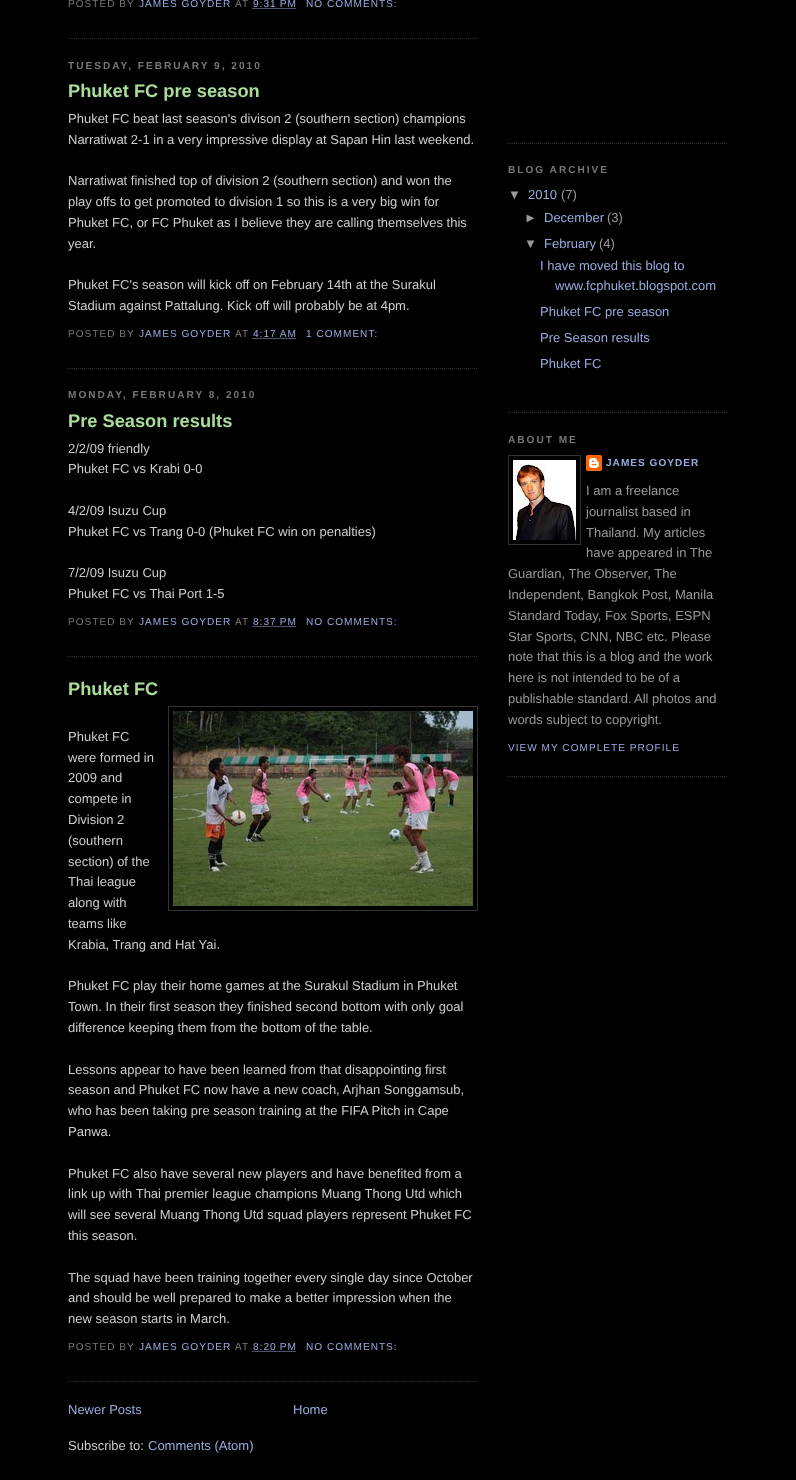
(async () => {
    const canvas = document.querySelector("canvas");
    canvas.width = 796;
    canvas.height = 1480;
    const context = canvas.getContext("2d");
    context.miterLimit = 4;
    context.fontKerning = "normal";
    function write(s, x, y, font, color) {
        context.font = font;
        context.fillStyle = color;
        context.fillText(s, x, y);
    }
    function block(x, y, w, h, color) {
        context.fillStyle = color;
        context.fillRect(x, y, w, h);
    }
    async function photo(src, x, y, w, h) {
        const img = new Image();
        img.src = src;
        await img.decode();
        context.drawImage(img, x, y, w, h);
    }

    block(0, 0, 796, 1480, "rgb(0, 0, 0)");
    context.beginPath();
    context.moveTo(68, 38.5);
    context.lineTo(478, 38.5);
    context.strokeStyle = "rgb(51, 51, 51)";
    context.setLineDash([1, 1]);
    context.stroke();
    context.letterSpacing = "1px";
    write("POSTED BY", 68, 7, "10.1px Liberation Sans", "rgb(119, 119, 119)");
    write("JAMES GOYDER", 139, 7, "10.1px Liberation Sans", "rgb(153, 170, 221)");
    write("AT", 235, 7, "10.1px Liberation Sans", "rgb(119, 119, 119)");
    write("9:31 PM", 253, 7, "10.1px Liberation Sans", "rgb(153, 170, 221)");
    context.beginPath();
    context.moveTo(252.5, 8.5);
    context.lineTo(296.5, 8.5);
    context.strokeStyle = "rgb(153, 170, 221)";
    context.stroke();
    write("NO COMMENTS:", 306, 7, "10.1px Liberation Sans", "rgb(153, 170, 221)");
    context.letterSpacing = "2px";
    write("TUESDAY, FEBRUARY 9, 2010", 68, 69, "bold 10.1px Liberation Sans", "rgb(119, 119, 119)");
    context.beginPath();
    context.moveTo(68, 368.5);
    context.lineTo(478, 368.5);
    context.strokeStyle = "rgb(51, 51, 51)";
    context.stroke();
    context.letterSpacing = "0px";
    write("Phuket FC pre season", 68, 97, "bold 18.25px Liberation Sans", "rgb(170, 221, 153)");
    write("Phuket FC beat last season's divison 2 (southern section) champions", 68, 123, "13px Liberation Sans", "rgb(204, 204, 204)");
    write("Narratiwat 2-1 in a very impressive display at Sapan Hin last weekend.", 68, 144, "13px Liberation Sans", "rgb(204, 204, 204)");
    write("Narratiwat finished top of division 2 (southern section) and won the", 68, 185, "13px Liberation Sans", "rgb(204, 204, 204)");
    write("play offs to get promoted to division 1 so this is a very big win for", 68, 206, "13px Liberation Sans", "rgb(204, 204, 204)");
    write("Phuket FC, or FC Phuket as I believe they are calling themselves this", 68, 227, "13px Liberation Sans", "rgb(204, 204, 204)");
    write("year.", 68, 248, "13px Liberation Sans", "rgb(204, 204, 204)");
    write("Phuket FC's season will kick off on February 14th at the Surakul", 68, 289, "13px Liberation Sans", "rgb(204, 204, 204)");
    write("Stadium against Pattalung. Kick off will probably be at 4pm.", 68, 310, "13px Liberation Sans", "rgb(204, 204, 204)");
    context.letterSpacing = "1px";
    write("POSTED BY", 68, 337, "10.1px Liberation Sans", "rgb(119, 119, 119)");
    write("JAMES GOYDER", 139, 337, "10.1px Liberation Sans", "rgb(153, 170, 221)");
    write("AT", 235, 337, "10.1px Liberation Sans", "rgb(119, 119, 119)");
    write("4:17 AM", 253, 337, "10.1px Liberation Sans", "rgb(153, 170, 221)");
    context.beginPath();
    context.moveTo(252.5, 338.5);
    context.lineTo(296.5, 338.5);
    context.strokeStyle = "rgb(153, 170, 221)";
    context.stroke();
    write("1 COMMENT:", 306, 337, "10.1px Liberation Sans", "rgb(153, 170, 221)");
    context.letterSpacing = "2px";
    write("MONDAY, FEBRUARY 8, 2010", 68, 398, "bold 10.1px Liberation Sans", "rgb(119, 119, 119)");
    context.beginPath();
    context.moveTo(68, 656.5);
    context.lineTo(478, 656.5);
    context.strokeStyle = "rgb(51, 51, 51)";
    context.stroke();
    context.letterSpacing = "0px";
    write("Pre Season results", 68, 427, "bold 18.25px Liberation Sans", "rgb(170, 221, 153)");
    write("2/2/09 friendly", 68, 453, "13px Liberation Sans", "rgb(204, 204, 204)");
    write("Phuket FC vs Krabi 0-0", 68, 473, "13px Liberation Sans", "rgb(204, 204, 204)");
    write("4/2/09 Isuzu Cup", 68, 515, "13px Liberation Sans", "rgb(204, 204, 204)");
    write("Phuket FC vs Trang 0-0 (Phuket FC win on penalties)", 68, 536, "13px Liberation Sans", "rgb(204, 204, 204)");
    write("7/2/09 Isuzu Cup", 68, 577, "13px Liberation Sans", "rgb(204, 204, 204)");
    write("Phuket FC vs Thai Port 1-5", 68, 598, "13px Liberation Sans", "rgb(204, 204, 204)");
    context.letterSpacing = "1px";
    write("POSTED BY", 68, 625, "10.1px Liberation Sans", "rgb(119, 119, 119)");
    write("JAMES GOYDER", 139, 625, "10.1px Liberation Sans", "rgb(153, 170, 221)");
    write("AT", 235, 625, "10.1px Liberation Sans", "rgb(119, 119, 119)");
    write("8:37 PM", 253, 625, "10.1px Liberation Sans", "rgb(153, 170, 221)");
    context.beginPath();
    context.moveTo(252.5, 626.5);
    context.lineTo(296.5, 626.5);
    context.strokeStyle = "rgb(153, 170, 221)";
    context.stroke();
    write("NO COMMENTS:", 306, 625, "10.1px Liberation Sans", "rgb(153, 170, 221)");
    context.beginPath();
    context.moveTo(68, 1381.5);
    context.lineTo(478, 1381.5);
    context.strokeStyle = "rgb(51, 51, 51)";
    context.stroke();
    context.letterSpacing = "0px";
    write("Phuket FC", 68, 695, "bold 18.25px Liberation Sans", "rgb(170, 221, 153)");
    write("Phuket FC", 68, 741, "13px Liberation Sans", "rgb(204, 204, 204)");
    context.setLineDash([]);
    context.strokeRect(168.5, 706.5, 309, 204);
    await photo("media/1.png", 173, 711, 300, 195);
    write("were formed in", 68, 762, "13px Liberation Sans", "rgb(204, 204, 204)");
    write("2009 and", 68, 782, "13px Liberation Sans", "rgb(204, 204, 204)");
    write("compete in", 68, 803, "13px Liberation Sans", "rgb(204, 204, 204)");
    write("Division 2", 68, 824, "13px Liberation Sans", "rgb(204, 204, 204)");
    write("(southern", 68, 845, "13px Liberation Sans", "rgb(204, 204, 204)");
    write("section) of the", 68, 866, "13px Liberation Sans", "rgb(204, 204, 204)");
    write("Thai league", 68, 886, "13px Liberation Sans", "rgb(204, 204, 204)");
    write("along with", 68, 907, "13px Liberation Sans", "rgb(204, 204, 204)");
    write("teams like", 68, 928, "13px Liberation Sans", "rgb(204, 204, 204)");
    write("Krabia, Trang and Hat Yai.", 68, 949, "13px Liberation Sans", "rgb(204, 204, 204)");
    write("Phuket FC play their home games at the Surakul Stadium in Phuket", 68, 990, "13px Liberation Sans", "rgb(204, 204, 204)");
    write("Town. In their first season they finished second bottom with only goal", 68, 1011, "13px Liberation Sans", "rgb(204, 204, 204)");
    write("difference keeping them from the bottom of the table.", 68, 1032, "13px Liberation Sans", "rgb(204, 204, 204)");
    write("Lessons appear to have been learned from that disappointing first", 68, 1074, "13px Liberation Sans", "rgb(204, 204, 204)");
    write("season and Phuket FC now have a new coach, Arjhan Songgamsub,", 68, 1094, "13px Liberation Sans", "rgb(204, 204, 204)");
    write("who has been taking pre season training at the FIFA Pitch in Cape", 68, 1115, "13px Liberation Sans", "rgb(204, 204, 204)");
    write("Panwa.", 68, 1136, "13px Liberation Sans", "rgb(204, 204, 204)");
    write("Phuket FC also have several new players and have benefited from a", 68, 1178, "13px Liberation Sans", "rgb(204, 204, 204)");
    write("link up with Thai premier league champions Muang Thong Utd which", 68, 1198, "13px Liberation Sans", "rgb(204, 204, 204)");
    write("will see several Muang Thong Utd squad players represent Phuket FC", 68, 1219, "13px Liberation Sans", "rgb(204, 204, 204)");
    write("this season.", 68, 1240, "13px Liberation Sans", "rgb(204, 204, 204)");
    write("The squad have been training together every single day since October", 68, 1282, "13px Liberation Sans", "rgb(204, 204, 204)");
    write("and should be well prepared to make a better impression when the", 68, 1302, "13px Liberation Sans", "rgb(204, 204, 204)");
    write("new season starts in March.", 68, 1323, "13px Liberation Sans", "rgb(204, 204, 204)");
    context.letterSpacing = "1px";
    write("POSTED BY", 68, 1350, "10.1px Liberation Sans", "rgb(119, 119, 119)");
    write("JAMES GOYDER", 139, 1350, "10.1px Liberation Sans", "rgb(153, 170, 221)");
    write("AT", 235, 1350, "10.1px Liberation Sans", "rgb(119, 119, 119)");
    write("8:20 PM", 253, 1350, "10.1px Liberation Sans", "rgb(153, 170, 221)");
    context.beginPath();
    context.moveTo(252.5, 1351.5);
    context.lineTo(296.5, 1351.5);
    context.strokeStyle = "rgb(153, 170, 221)";
    context.setLineDash([1, 1]);
    context.stroke();
    write("NO COMMENTS:", 306, 1350, "10.1px Liberation Sans", "rgb(153, 170, 221)");
    context.letterSpacing = "0px";
    write("Newer Posts", 68, 1414, "13px Liberation Sans", "rgb(153, 170, 221)");
    write("Home", 293, 1414, "13px Liberation Sans", "rgb(153, 170, 221)");
    write("Subscribe to:", 68, 1450, "13px Liberation Sans", "rgb(204, 204, 204)");
    write("Comments (Atom)", 148, 1450, "13px Liberation Sans", "rgb(153, 170, 221)");
    context.beginPath();
    context.moveTo(508, 143.5);
    context.lineTo(728, 143.5);
    context.strokeStyle = "rgb(51, 51, 51)";
    context.stroke();
    context.beginPath();
    context.moveTo(508, 412.5);
    context.lineTo(728, 412.5);
    context.stroke();
    context.letterSpacing = "2px";
    write("BLOG ARCHIVE", 508, 173, "bold 10.1px Liberation Sans", "rgb(119, 119, 119)");
    context.letterSpacing = "0px";
    write("▼", 508, 199, "13px Liberation Sans", "rgb(153, 153, 153)");
    write("2010", 528, 199, "13px Liberation Sans", "rgb(153, 170, 221)");
    write("(7)", 561, 199, "13px Liberation Sans", "rgb(153, 153, 153)");
    write("►", 524, 222, "13px Liberation Sans", "rgb(153, 153, 153)");
    write("December", 544, 222, "13px Liberation Sans", "rgb(153, 170, 221)");
    write("(3)", 607, 222, "13px Liberation Sans", "rgb(153, 153, 153)");
    write("▼", 524, 248, "13px Liberation Sans", "rgb(153, 153, 153)");
    write("February", 544, 248, "13px Liberation Sans", "rgb(153, 170, 221)");
    write("(4)", 599, 248, "13px Liberation Sans", "rgb(153, 153, 153)");
    write("I have moved this blog to", 540, 270, "13px Liberation Sans", "rgb(153, 170, 221)");
    write("www.fcphuket.blogspot.com", 555, 290, "13px Liberation Sans", "rgb(153, 170, 221)");
    write("Phuket FC pre season", 540, 316, "13px Liberation Sans", "rgb(153, 170, 221)");
    write("Pre Season results", 540, 342, "13px Liberation Sans", "rgb(153, 170, 221)");
    write("Phuket FC", 540, 368, "13px Liberation Sans", "rgb(153, 170, 221)");
    context.beginPath();
    context.moveTo(508, 776.5);
    context.lineTo(728, 776.5);
    context.stroke();
    context.letterSpacing = "2px";
    write("ABOUT ME", 508, 443, "bold 10.1px Liberation Sans", "rgb(119, 119, 119)");
    context.setLineDash([]);
    context.strokeRect(508.5, 455.5, 72, 89);
    await photo("media/2.png", 513, 460, 63, 80);
    await photo("media/3.png", 586, 455, 16, 16);
    context.letterSpacing = "1px";
    write("JAMES GOYDER", 606, 466, "bold 10.1px Liberation Sans", "rgb(153, 170, 221)");
    context.letterSpacing = "0px";
    write("I am a freelance", 586, 495, "13px Liberation Sans", "rgb(153, 153, 153)");
    write("journalist based in", 586, 516, "13px Liberation Sans", "rgb(153, 153, 153)");
    write("Thailand. My articles", 586, 537, "13px Liberation Sans", "rgb(153, 153, 153)");
    write("have appeared in The", 586, 557, "13px Liberation Sans", "rgb(153, 153, 153)");
    write("Guardian, The Observer, The", 508, 578, "13px Liberation Sans", "rgb(153, 153, 153)");
    write("Independent, Bangkok Post, Manila", 508, 599, "13px Liberation Sans", "rgb(153, 153, 153)");
    write("Standard Today, Fox Sports, ESPN", 508, 620, "13px Liberation Sans", "rgb(153, 153, 153)");
    write("Star Sports, CNN, NBC etc. Please", 508, 641, "13px Liberation Sans", "rgb(153, 153, 153)");
    write("note that this is a blog and the work", 508, 661, "13px Liberation Sans", "rgb(153, 153, 153)");
    write("here is not intended to be of a", 508, 682, "13px Liberation Sans", "rgb(153, 153, 153)");
    write("publishable standard.", 508, 703, "13px Liberation Sans", "rgb(153, 153, 153)");
    write("All photos and", 634, 703, "13px Liberation Sans", "rgb(153, 153, 153)");
    write("words subject to copyright.", 508, 724, "13px Liberation Sans", "rgb(153, 153, 153)");
    context.letterSpacing = "1px";
    write("VIEW MY COMPLETE PROFILE", 508, 751, "10.1px Liberation Sans", "rgb(153, 170, 221)");
})();
